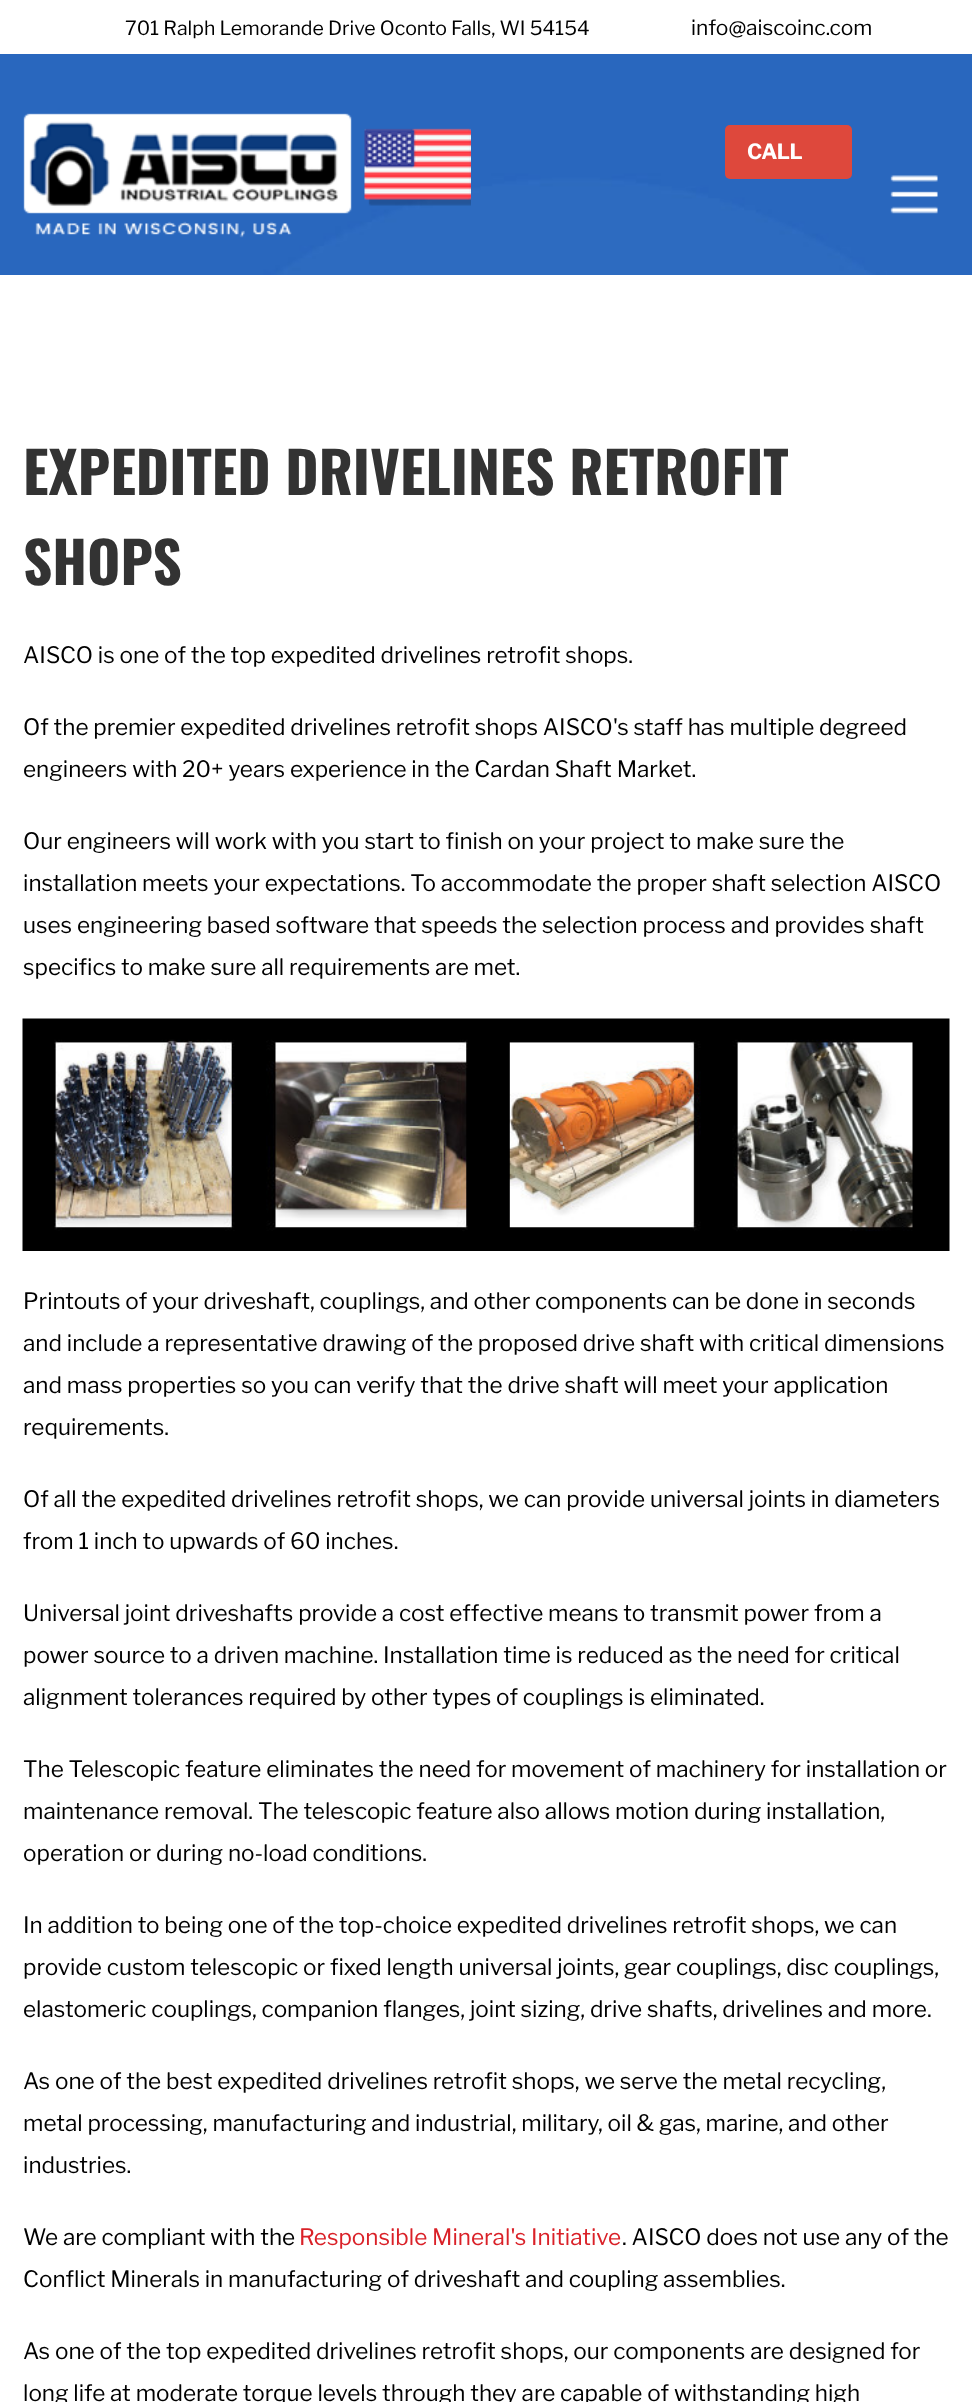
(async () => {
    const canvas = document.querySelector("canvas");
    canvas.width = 972;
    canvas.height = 2402;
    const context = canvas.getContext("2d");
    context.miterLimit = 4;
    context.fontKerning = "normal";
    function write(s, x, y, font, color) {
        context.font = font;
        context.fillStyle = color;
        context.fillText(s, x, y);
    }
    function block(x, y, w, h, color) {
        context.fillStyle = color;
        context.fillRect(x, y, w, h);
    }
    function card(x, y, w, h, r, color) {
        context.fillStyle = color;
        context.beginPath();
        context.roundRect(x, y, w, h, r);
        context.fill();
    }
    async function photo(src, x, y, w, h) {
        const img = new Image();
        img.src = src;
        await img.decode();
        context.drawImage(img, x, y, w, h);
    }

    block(0, 0, 972, 2402, "rgb(255, 255, 255)");
    write("701 Ralph Lemorande Drive Oconto Falls, WI 54154", 125, 35, "19.5px Libre Franklin", "rgb(0, 0, 0)");
    write("info@aiscoinc.com", 691, 35, "21px Libre Franklin", "rgb(0, 0, 0)");
    await photo("media/1.png", 0, 54, 972, 221);
    await photo("media/2.png", 23, 113, 448, 125);
    card(725, 125, 127, 54, 5, "rgb(222, 72, 60)");
    context.letterSpacing = "-0.5px";
    write("CALL", 747, 159, "bold 21px Libre Franklin", "rgb(255, 255, 255)");
    await photo("media/3.png", 890, 175, 48, 39);
    context.letterSpacing = "0px";
    write("EXPEDITED DRIVELINES RETROFIT", 23, 495, "bold 57px Oswald", "rgb(51, 51, 51)");
    write("SHOPS", 23, 585, "bold 57px Oswald", "rgb(51, 51, 51)");
    write("AISCO is one of the top expedited drivelines retrofit shops.", 23, 663, "22.5px Libre Franklin", "rgb(0, 0, 0)");
    write("Of the premier expedited drivelines retrofit shops AISCO's staff has multiple degreed", 23, 735, "22.5px Libre Franklin", "rgb(0, 0, 0)");
    write("engineers with 20+ years experience in the Cardan Shaft Market.", 23, 777, "22.5px Libre Franklin", "rgb(0, 0, 0)");
    write("Our engineers will work with you start to finish on your project to make sure the", 23, 849, "22.5px Libre Franklin", "rgb(0, 0, 0)");
    write("installation meets your expectations. To accommodate the proper shaft selection AISCO", 23, 891, "22.5px Libre Franklin", "rgb(0, 0, 0)");
    write("uses engineering based software that speeds the selection process and provides shaft", 23, 933, "22.5px Libre Franklin", "rgb(0, 0, 0)");
    write("specifics to make sure all requirements are met.", 23, 975, "22.5px Libre Franklin", "rgb(0, 0, 0)");
    await photo("media/4.png", 22, 1018, 928, 233);
    write("Printouts of your driveshaft, couplings, and other components can be done in seconds", 23, 1309, "22.5px Libre Franklin", "rgb(0, 0, 0)");
    write("and include a representative drawing of the proposed drive shaft with critical dimensions", 23, 1351, "22.5px Libre Franklin", "rgb(0, 0, 0)");
    write("and mass properties so you can verify that the drive shaft will meet your application", 23, 1393, "22.5px Libre Franklin", "rgb(0, 0, 0)");
    write("requirements.", 23, 1435, "22.5px Libre Franklin", "rgb(0, 0, 0)");
    write("Of all the expedited drivelines retrofit shops, we can provide universal joints in diameters", 23, 1507, "22.5px Libre Franklin", "rgb(0, 0, 0)");
    write("from 1 inch to upwards of 60 inches.", 23, 1549, "22.5px Libre Franklin", "rgb(0, 0, 0)");
    write("Universal joint driveshafts provide a cost effective means to transmit power from a", 23, 1621, "22.5px Libre Franklin", "rgb(0, 0, 0)");
    write("power source to a driven machine. Installation time is reduced as the need for critical", 23, 1663, "22.5px Libre Franklin", "rgb(0, 0, 0)");
    write("alignment tolerances required by other types of couplings is eliminated.", 23, 1705, "22.5px Libre Franklin", "rgb(0, 0, 0)");
    write("The Telescopic feature eliminates the need for movement of machinery for installation or", 23, 1777, "22.5px Libre Franklin", "rgb(0, 0, 0)");
    write("maintenance removal. The telescopic feature also allows motion during installation,", 23, 1819, "22.5px Libre Franklin", "rgb(0, 0, 0)");
    write("operation or during no-load conditions.", 23, 1861, "22.5px Libre Franklin", "rgb(0, 0, 0)");
    write("In addition to being one of the top-choice expedited drivelines retrofit shops, we can", 23, 1933, "22.5px Libre Franklin", "rgb(0, 0, 0)");
    write("provide custom telescopic or fixed length universal joints, gear couplings, disc couplings,", 23, 1975, "22.5px Libre Franklin", "rgb(0, 0, 0)");
    write("elastomeric couplings, companion flanges, joint sizing, drive shafts, drivelines and more.", 23, 2017, "22.5px Libre Franklin", "rgb(0, 0, 0)");
    write("As one of the best expedited drivelines retrofit shops, we serve the metal recycling,", 23, 2089, "22.5px Libre Franklin", "rgb(0, 0, 0)");
    write("metal processing, manufacturing and industrial, military, oil & gas, marine, and other", 23, 2131, "22.5px Libre Franklin", "rgb(0, 0, 0)");
    write("industries.", 23, 2173, "22.5px Libre Franklin", "rgb(0, 0, 0)");
    write("We are compliant with the", 23, 2245, "22.5px Libre Franklin", "rgb(0, 0, 0)");
    write("Responsible Mineral's Initiative", 299, 2245, "22.5px Libre Franklin", "rgb(218, 33, 40)");
    write(". AISCO does not use any of the", 622, 2245, "22.5px Libre Franklin", "rgb(0, 0, 0)");
    write("Conflict Minerals in manufacturing of driveshaft and coupling assemblies.", 23, 2287, "22.5px Libre Franklin", "rgb(0, 0, 0)");
    write("As one of the top expedited drivelines retrofit shops, our components are designed for", 23, 2359, "22.5px Libre Franklin", "rgb(0, 0, 0)");
    write("long life at moderate torque levels through they are capable of withstanding high", 23, 2401, "22.5px Libre Franklin", "rgb(0, 0, 0)");
})();
